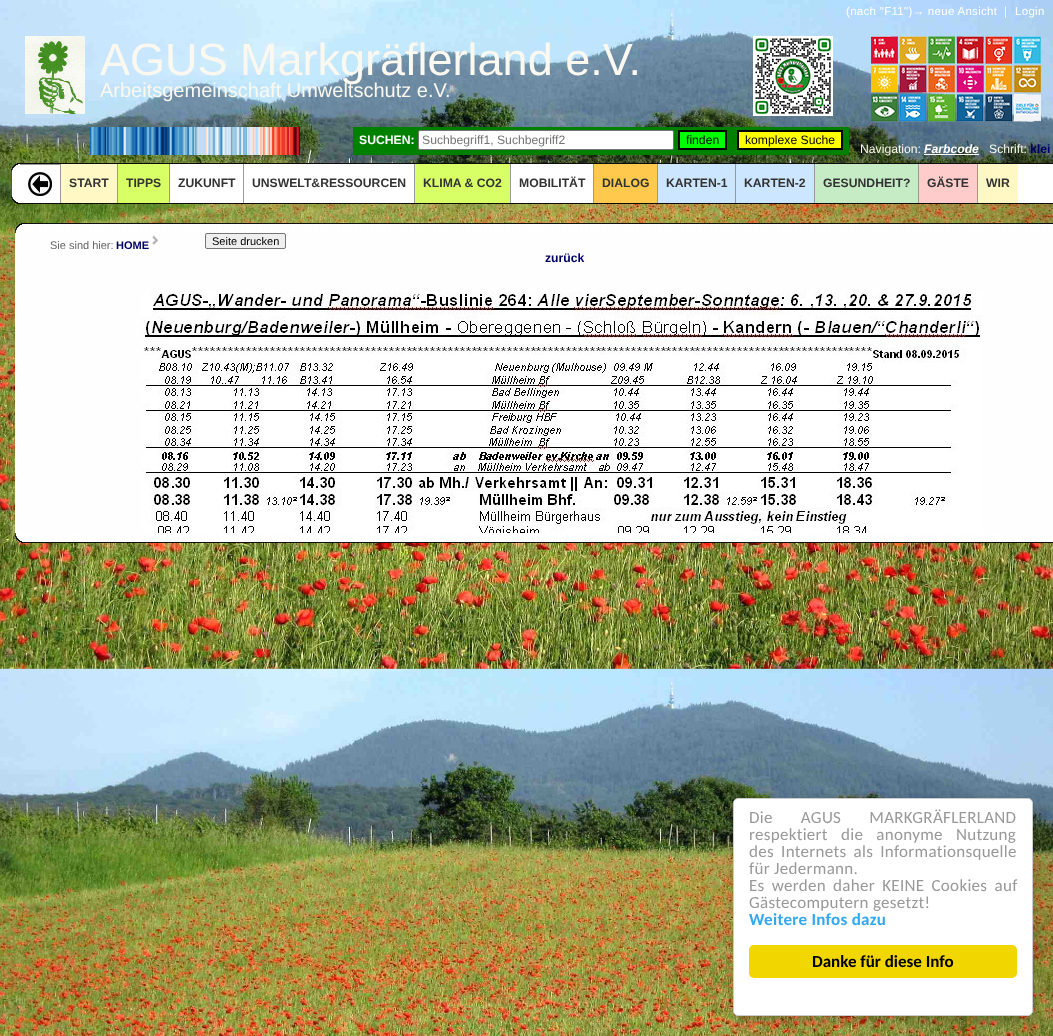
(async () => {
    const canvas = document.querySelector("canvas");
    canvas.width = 1053;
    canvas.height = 1036;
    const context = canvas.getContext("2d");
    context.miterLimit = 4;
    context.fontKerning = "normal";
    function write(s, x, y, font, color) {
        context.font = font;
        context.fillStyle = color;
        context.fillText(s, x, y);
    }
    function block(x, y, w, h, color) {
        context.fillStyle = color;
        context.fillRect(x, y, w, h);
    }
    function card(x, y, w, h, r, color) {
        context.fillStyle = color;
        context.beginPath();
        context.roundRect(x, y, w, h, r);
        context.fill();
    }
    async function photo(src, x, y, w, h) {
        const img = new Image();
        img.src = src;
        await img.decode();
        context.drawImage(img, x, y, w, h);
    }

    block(0, 0, 1053, 1036, "rgb(255, 255, 255)");
    await photo("media/1.png", 0, 0, 1053, 1036);
    context.letterSpacing = "0.3px";
    write("(nach \"F11\")→ neue Ansicht", 846, 15, "11.5px Liberation Sans", "rgb(255, 255, 255)");
    write("|", 1004, 15, "11.5px Liberation Sans", "rgb(255, 255, 255)");
    write("Login", 1015, 15, "11.5px Liberation Sans", "rgb(255, 255, 255)");
    await photo("media/2.png", 25, 36, 60, 78);
    context.letterSpacing = "0px";
    write("AGUS Markgräflerland e.V.", 100, 75, "45px Liberation Sans", "rgb(251, 248, 239)");
    write("Arbeitsgemeinschaft Umweltschutz e.V.", 100, 97, "20px Liberation Sans", "rgb(251, 248, 239)");
    await photo("media/3.png", 753, 36, 80, 80);
    await photo("media/4.png", 871, 36, 170, 86);
    await photo("media/5.png", 90, 127, 210, 28);
    block(353, 127, 496, 28, "rgb(0, 128, 0)");
    write("SUCHEN:", 359, 144, "bold 12.2px Liberation Sans", "rgb(255, 255, 255)");
    context.beginPath();
    context.roundRect(418.5, 130.5, 255, 19, 1.5);
    context.fill();
    context.strokeStyle = "rgb(118, 118, 118)";
    context.stroke();
    write("Suchbegriff1, Suchbegriff2", 422, 144, "12.2px Liberation Sans", "rgb(117, 117, 117)");
    context.fillStyle = "rgb(0, 255, 0)";
    context.beginPath();
    context.rect(679, 131, 47, 18);
    context.fill();
    context.strokeStyle = "rgb(0, 0, 0)";
    context.lineWidth = 2;
    context.stroke();
    write("finden", 686, 144, "12.2px Liberation Sans", "rgb(0, 0, 0)");
    context.fillStyle = "rgb(255, 255, 0)";
    context.beginPath();
    context.rect(738, 131, 104, 18);
    context.fill();
    context.stroke();
    write("komplexe Suche", 745, 144, "12.2px Liberation Sans", "rgb(0, 0, 0)");
    write("Navigation:", 860, 153, "12.2px Liberation Sans", "rgb(251, 248, 239)");
    write("Farbcode", 924, 153, "italic bold 12.2px Liberation Sans", "rgb(255, 255, 255)");
    block(924, 154, 55, 1, "rgb(255, 255, 255)");
    write("Schrift:", 989, 153, "12.2px Liberation Sans", "rgb(251, 248, 239)");
    write("klei", 1030, 153, "bold 12.2px Liberation Sans", "rgb(0, 0, 102)");
    await photo("media/6.png", 11, 163, 1042, 41);
    block(20, 164, 40, 1, "rgb(153, 153, 153)");
    await photo("media/7.png", 28, 172, 24, 24);
    block(60, 164, 1, 39, "rgb(153, 153, 153)");
    block(61, 164, 56, 39, "rgb(255, 247, 196)");
    write("START", 69, 187, "bold 12.2px Liberation Sans", "rgb(51, 51, 51)");
    block(117, 164, 1, 39, "rgb(153, 153, 153)");
    block(118, 164, 51, 39, "rgb(217, 255, 102)");
    write("TIPPS", 126, 187, "bold 12.2px Liberation Sans", "rgb(51, 51, 51)");
    block(169, 164, 1, 39, "rgb(153, 153, 153)");
    write("ZUKUNFT", 178, 187, "bold 12.2px Liberation Sans", "rgb(51, 51, 51)");
    block(243, 164, 1, 39, "rgb(153, 153, 153)");
    write("UNSWELT&RESSOURCEN", 252, 187, "bold 12.2px Liberation Sans", "rgb(51, 51, 51)");
    block(414, 164, 1, 39, "rgb(153, 153, 153)");
    block(415, 164, 95, 39, "rgb(217, 255, 102)");
    write("KLIMA & CO2", 423, 187, "bold 12.2px Liberation Sans", "rgb(51, 51, 51)");
    block(510, 164, 1, 39, "rgb(153, 153, 153)");
    write("MOBILITÄT", 519, 187, "bold 12.2px Liberation Sans", "rgb(51, 51, 51)");
    block(593, 164, 1, 39, "rgb(153, 153, 153)");
    block(594, 164, 63, 39, "rgb(255, 201, 77)");
    write("DIALOG", 602, 187, "bold 12.2px Liberation Sans", "rgb(51, 51, 51)");
    block(657, 164, 1, 39, "rgb(153, 153, 153)");
    block(658, 164, 77, 39, "rgb(204, 230, 255)");
    write("KARTEN-1", 666, 187, "bold 12.2px Liberation Sans", "rgb(51, 51, 51)");
    block(735, 164, 1, 39, "rgb(153, 153, 153)");
    block(736, 164, 78, 39, "rgb(204, 230, 255)");
    write("KARTEN-2", 744, 187, "bold 12.2px Liberation Sans", "rgb(51, 51, 51)");
    block(814, 164, 1, 39, "rgb(153, 153, 153)");
    block(815, 164, 103, 39, "rgb(198, 236, 198)");
    write("GESUNDHEIT?", 823, 187, "bold 12.2px Liberation Sans", "rgb(51, 51, 51)");
    block(918, 164, 1, 39, "rgb(153, 153, 153)");
    block(919, 164, 58, 39, "rgb(255, 204, 204)");
    write("GÄSTE", 927, 187, "bold 12.2px Liberation Sans", "rgb(51, 51, 51)");
    block(977, 164, 1, 39, "rgb(153, 153, 153)");
    block(978, 164, 40, 39, "rgb(255, 247, 196)");
    write("WIR", 986, 187, "bold 12.2px Liberation Sans", "rgb(51, 51, 51)");
    await photo("media/8.png", 15, 223, 1038, 10);
    await photo("media/9.png", 15, 533, 1038, 10);
    block(15, 233, 1038, 300, "rgb(254, 254, 254)");
    write("Sie sind hier:", 50, 249, "11px Liberation Sans", "rgb(102, 102, 102)");
    write("HOME", 116, 249, "bold 11px Liberation Sans", "rgb(0, 0, 102)");
    await photo("media/10.png", 152, 235, 6, 10);
    context.fillStyle = "rgb(239, 239, 239)";
    context.beginPath();
    context.roundRect(205.5, 233.5, 80, 15, 1.5);
    context.fill();
    context.strokeStyle = "rgb(118, 118, 118)";
    context.lineWidth = 1;
    context.stroke();
    write("Seite drucken", 212, 245, "11px Liberation Sans", "rgb(0, 0, 0)");
    write("zurück", 545, 262, "bold 12.2px Liberation Sans", "rgb(0, 0, 102)");
    await photo("media/11.png", 142, 291, 840, 242);
    context.fillStyle = "rgba(0, 0, 0, 0.2)";
    context.filter = "blur(5px)";
    context.beginPath();
    context.roundRect(733, 803, 300, 218, 5);
    context.fill();
    context.filter = "none";
    context.fillStyle = "rgb(255, 255, 255)";
    context.beginPath();
    context.roundRect(733.5, 798.5, 299, 217, 4.5);
    context.fill();
    context.strokeStyle = "rgb(204, 204, 204)";
    context.stroke();
    context.letterSpacing = "0.3px";
    context.wordSpacing = "24px";
    write("Die AGUS MARKGRÄFLERLAND", 749, 823, "17px Carlito", "rgb(153, 153, 153)");
    context.wordSpacing = "9px";
    write("respektiert die anonyme Nutzung", 749, 840, "17px Carlito", "rgb(153, 153, 153)");
    context.wordSpacing = "3px";
    write("des Internets als Informationsquelle", 749, 857, "17px Carlito", "rgb(153, 153, 153)");
    context.wordSpacing = "0px";
    write("für Jedermann.", 749, 874, "17px Carlito", "rgb(153, 153, 153)");
    context.wordSpacing = "3px";
    write("Es werden daher KEINE Cookies auf", 749, 891, "17px Carlito", "rgb(153, 153, 153)");
    context.wordSpacing = "0px";
    write("Gästecomputern gesetzt!", 749, 908, "17px Carlito", "rgb(153, 153, 153)");
    write("Weitere Infos dazu", 749, 925, "bold 17px Carlito", "rgb(49, 168, 240)");
    card(749, 945, 268, 33, 5, "rgb(241, 214, 0)");
    context.letterSpacing = "0px";
    write("Danke für diese Info", 812, 967, "bold 17px Carlito", "rgb(0, 0, 0)");
})();
